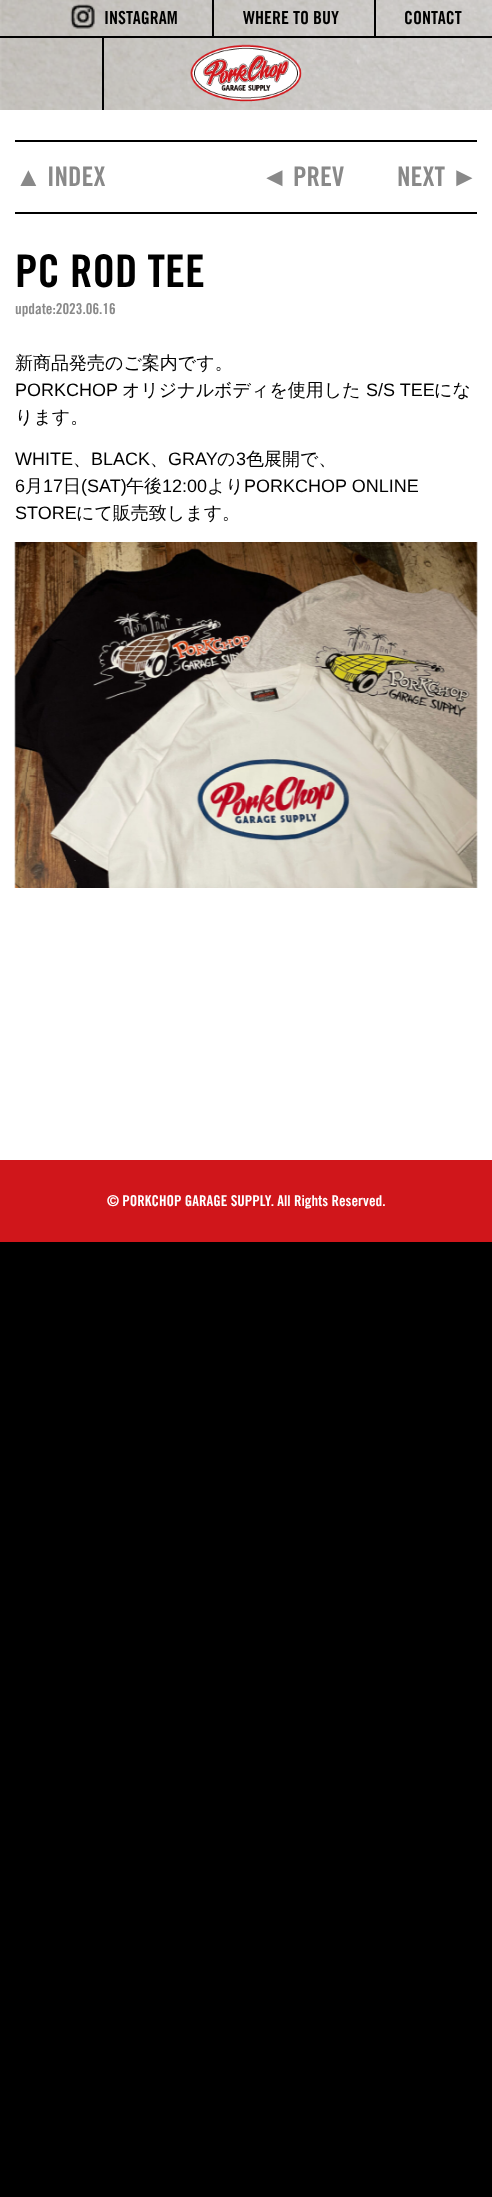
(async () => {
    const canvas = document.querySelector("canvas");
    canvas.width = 492;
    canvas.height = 2197;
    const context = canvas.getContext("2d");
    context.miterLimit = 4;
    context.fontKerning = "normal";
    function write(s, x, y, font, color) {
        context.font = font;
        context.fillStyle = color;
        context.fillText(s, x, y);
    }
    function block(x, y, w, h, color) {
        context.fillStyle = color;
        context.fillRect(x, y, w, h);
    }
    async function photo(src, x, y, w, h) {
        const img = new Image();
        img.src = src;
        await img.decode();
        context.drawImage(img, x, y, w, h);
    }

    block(0, 0, 492, 2197, "rgb(0, 0, 0)");
    block(0, 110, 492, 1050, "rgb(255, 255, 255)");
    await photo("media/1.png", 0, 0, 492, 110);
    block(0, 36, 492, 2, "rgb(0, 0, 0)");
    await photo("media/2.png", 70, 4, 25, 25);
    write("INSTAGRAM", 104, 24, "bold 18px 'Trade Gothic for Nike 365'", "rgb(0, 0, 0)");
    block(212, 0, 2, 36, "rgb(0, 0, 0)");
    write("WHERE TO BUY", 243, 24, "bold 18px 'Trade Gothic for Nike 365'", "rgb(0, 0, 0)");
    block(374, 0, 2, 36, "rgb(0, 0, 0)");
    write("CONTACT", 404, 24, "bold 18px 'Trade Gothic for Nike 365'", "rgb(0, 0, 0)");
    block(102, 38, 2, 72, "rgb(0, 0, 0)");
    await photo("media/3.png", 190, 44, 112, 58);
    block(15, 140, 462, 2, "rgb(0, 0, 0)");
    block(15, 212, 462, 2, "rgb(0, 0, 0)");
    write("▲", 15, 186, "27px Liberation Sans", "rgb(137, 137, 137)");
    write("INDEX", 47, 186, "bold 27px 'Trade Gothic for Nike 365'", "rgb(137, 137, 137)");
    write("◄", 261, 186, "27px Liberation Sans", "rgb(137, 137, 137)");
    write("PREV", 293, 186, "bold 27px 'Trade Gothic for Nike 365'", "rgb(137, 137, 137)");
    write("NEXT", 397, 186, "bold 27px 'Trade Gothic for Nike 365'", "rgb(137, 137, 137)");
    write("►", 451, 186, "27px Liberation Sans", "rgb(137, 137, 137)");
    write("PC ROD TEE", 15, 287, "bold 45px 'Trade Gothic for Nike 365'", "rgb(0, 0, 0)");
    write("update:2023.06.16", 15, 314, "bold 15px 'Trade Gothic for Nike 365'", "rgb(137, 137, 137)");
    write("新商品発売のご案内です。", 15, 369, "500 18px WenQuanYi Zen Hei", "rgb(0, 0, 0)");
    write("PORKCHOP", 15, 396, "18px Liberation Sans", "rgb(0, 0, 0)");
    write("オリジナルボディを使用した", 122, 396, "500 18px WenQuanYi Zen Hei", "rgb(0, 0, 0)");
    write("S/S TEE", 366, 396, "18px Liberation Sans", "rgb(0, 0, 0)");
    write("にな", 434, 396, "500 18px WenQuanYi Zen Hei", "rgb(0, 0, 0)");
    write("ります。", 15, 423, "500 18px WenQuanYi Zen Hei", "rgb(0, 0, 0)");
    write("WHITE", 15, 465, "18px Liberation Sans", "rgb(0, 0, 0)");
    write("、", 73, 465, "500 18px WenQuanYi Zen Hei", "rgb(0, 0, 0)");
    write("BLACK", 91, 465, "18px Liberation Sans", "rgb(0, 0, 0)");
    write("、", 150, 465, "500 18px WenQuanYi Zen Hei", "rgb(0, 0, 0)");
    write("GRAY", 168, 465, "18px Liberation Sans", "rgb(0, 0, 0)");
    write("の", 217, 465, "500 18px WenQuanYi Zen Hei", "rgb(0, 0, 0)");
    write("3", 236, 465, "18px Liberation Sans", "rgb(0, 0, 0)");
    write("色展開で、", 246, 465, "500 18px WenQuanYi Zen Hei", "rgb(0, 0, 0)");
    write("6", 15, 492, "18px Liberation Sans", "rgb(0, 0, 0)");
    write("月", 25, 492, "500 18px WenQuanYi Zen Hei", "rgb(0, 0, 0)");
    write("17", 43, 492, "18px Liberation Sans", "rgb(0, 0, 0)");
    write("日", 63, 492, "500 18px WenQuanYi Zen Hei", "rgb(0, 0, 0)");
    write("(SAT)", 81, 492, "18px Liberation Sans", "rgb(0, 0, 0)");
    write("午後", 126, 492, "500 18px WenQuanYi Zen Hei", "rgb(0, 0, 0)");
    write("12:00", 162, 492, "18px Liberation Sans", "rgb(0, 0, 0)");
    write("より", 207, 492, "500 18px WenQuanYi Zen Hei", "rgb(0, 0, 0)");
    write("PORKCHOP ONLINE", 244, 492, "18px Liberation Sans", "rgb(0, 0, 0)");
    write("STORE", 15, 519, "18px Liberation Sans", "rgb(0, 0, 0)");
    write("にて販売致します。", 76, 519, "500 18px WenQuanYi Zen Hei", "rgb(0, 0, 0)");
    await photo("media/4.png", 14, 542, 464, 346);
    block(0, 1160, 492, 82, "rgb(208, 22, 27)");
    write("© PORKCHOP GARAGE SUPPLY. All Rights Reserved.", 107, 1206, "bold 15px 'Trade Gothic for Nike 365'", "rgb(255, 255, 255)");
})();
